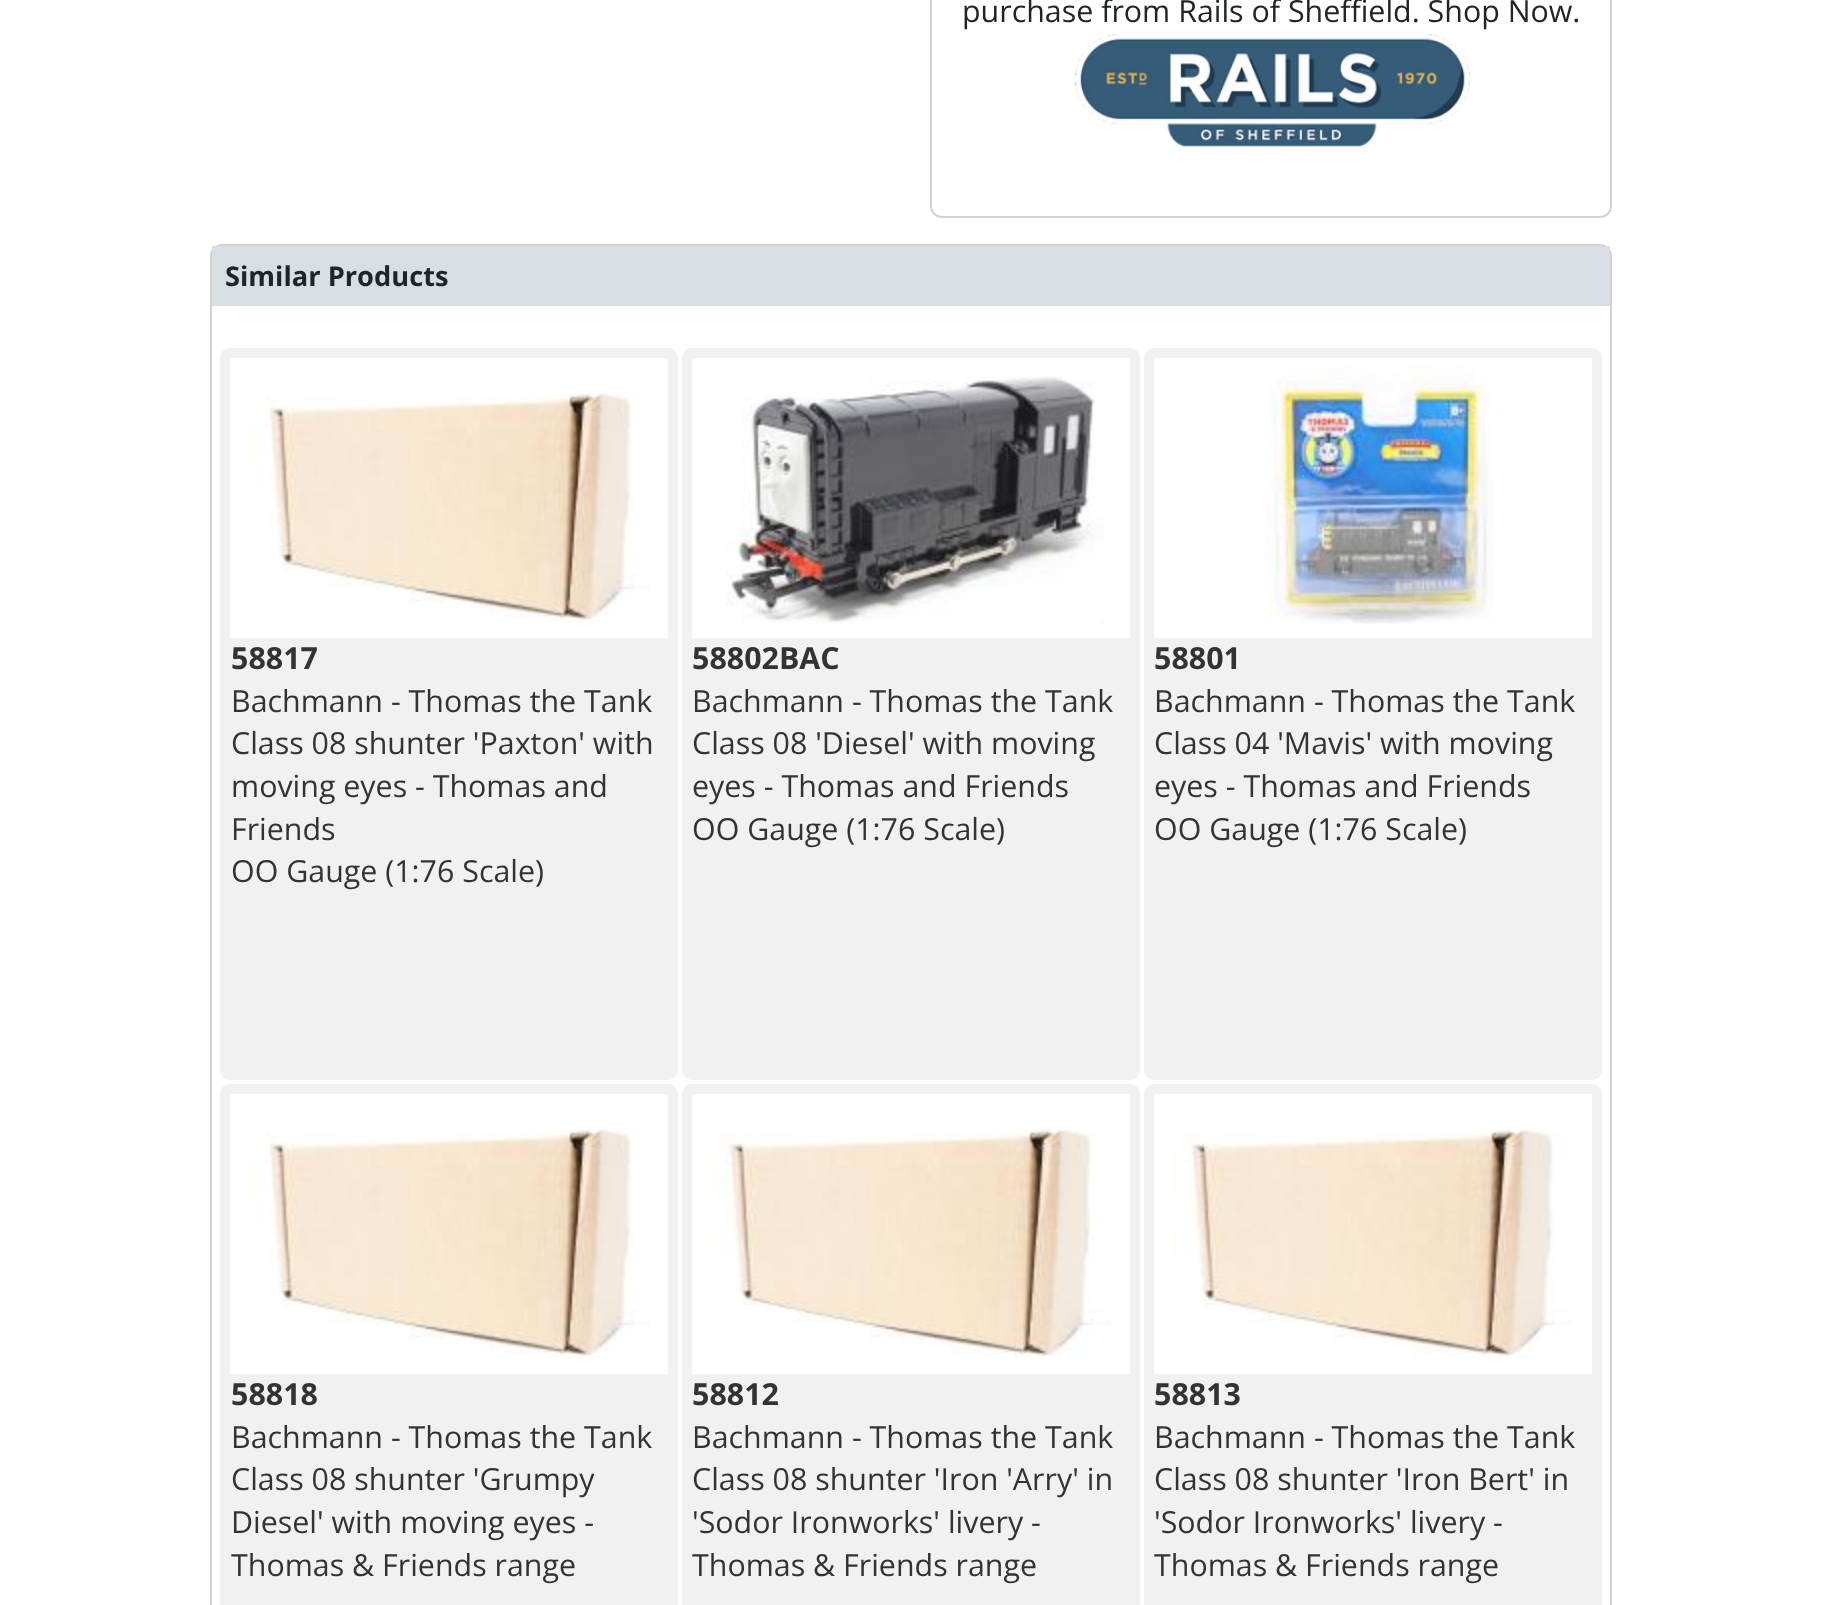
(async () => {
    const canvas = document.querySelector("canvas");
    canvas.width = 1822;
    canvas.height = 1605;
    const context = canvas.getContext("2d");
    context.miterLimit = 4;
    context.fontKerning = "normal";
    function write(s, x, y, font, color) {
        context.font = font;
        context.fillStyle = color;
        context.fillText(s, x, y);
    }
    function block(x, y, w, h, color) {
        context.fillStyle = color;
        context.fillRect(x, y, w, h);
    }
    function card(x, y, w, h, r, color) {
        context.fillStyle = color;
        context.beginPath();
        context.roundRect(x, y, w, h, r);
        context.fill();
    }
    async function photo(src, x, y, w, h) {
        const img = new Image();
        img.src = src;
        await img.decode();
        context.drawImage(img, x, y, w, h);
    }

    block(0, 0, 1822, 1605, "rgb(255, 255, 255)");
    context.beginPath();
    context.roundRect(931, -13, 680, 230, 11);
    context.strokeStyle = "rgb(210, 210, 210)";
    context.lineWidth = 2;
    context.stroke();
    write("purchase from Rails of Sheffield. Shop Now.", 962, 22, "30.4px Open Sans", "rgb(33, 37, 41)");
    await photo("media/1.png", 1074, 34, 396, 113);
    context.beginPath();
    context.roundRect(211, 245, 1400, 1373, 11);
    context.stroke();
    block(212, 246, 1398, 60, "rgb(217, 222, 229)");
    write("Similar Products", 225, 286, "bold 27.25px Open Sans", "rgb(33, 37, 41)");
    card(220, 348, 458, 732, 10, "rgb(241, 241, 241)");
    block(230, 358, 438, 280, "rgb(255, 255, 255)");
    await photo("media/2.png", 250, 393, 400, 229);
    write("58817", 231, 669, "bold 30.4px Open Sans", "rgb(51, 51, 51)");
    write("Bachmann - Thomas the Tank", 231, 712, "30.4px Open Sans", "rgb(51, 51, 51)");
    write("Class 08 shunter 'Paxton' with", 231, 754, "30.4px Open Sans", "rgb(51, 51, 51)");
    write("moving eyes - Thomas and", 231, 797, "30.4px Open Sans", "rgb(51, 51, 51)");
    write("Friends", 231, 840, "30.4px Open Sans", "rgb(51, 51, 51)");
    write("OO Gauge (1:76 Scale)", 231, 882, "30.4px Open Sans", "rgb(51, 51, 51)");
    card(682, 348, 458, 732, 10, "rgb(241, 241, 241)");
    block(692, 358, 438, 280, "rgb(255, 255, 255)");
    await photo("media/3.png", 726, 376, 378, 248);
    write("58802BAC", 692, 669, "bold 30.4px Open Sans", "rgb(51, 51, 51)");
    write("Bachmann - Thomas the Tank", 692, 712, "30.4px Open Sans", "rgb(51, 51, 51)");
    write("Class 08 'Diesel' with moving", 692, 754, "30.4px Open Sans", "rgb(51, 51, 51)");
    write("eyes - Thomas and Friends", 692, 797, "30.4px Open Sans", "rgb(51, 51, 51)");
    write("OO Gauge (1:76 Scale)", 692, 840, "30.4px Open Sans", "rgb(51, 51, 51)");
    card(1144, 348, 458, 732, 10, "rgb(241, 241, 241)");
    block(1154, 358, 438, 280, "rgb(255, 255, 255)");
    await photo("media/4.png", 1267, 365, 227, 259);
    write("58801", 1154, 669, "bold 30.4px Open Sans", "rgb(51, 51, 51)");
    write("Bachmann - Thomas the Tank", 1154, 712, "30.4px Open Sans", "rgb(51, 51, 51)");
    write("Class 04 'Mavis' with moving", 1154, 754, "30.4px Open Sans", "rgb(51, 51, 51)");
    write("eyes - Thomas and Friends", 1154, 797, "30.4px Open Sans", "rgb(51, 51, 51)");
    write("OO Gauge (1:76 Scale)", 1154, 840, "30.4px Open Sans", "rgb(51, 51, 51)");
    card(220, 1084, 458, 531, 10, "rgb(241, 241, 241)");
    block(230, 1094, 438, 280, "rgb(255, 255, 255)");
    await photo("media/2.png", 250, 1129, 400, 229);
    write("58818", 231, 1405, "bold 30.4px Open Sans", "rgb(51, 51, 51)");
    write("Bachmann - Thomas the Tank", 231, 1448, "30.4px Open Sans", "rgb(51, 51, 51)");
    write("Class 08 shunter 'Grumpy", 231, 1490, "30.4px Open Sans", "rgb(51, 51, 51)");
    write("Diesel' with moving eyes -", 231, 1533, "30.4px Open Sans", "rgb(51, 51, 51)");
    write("Thomas & Friends range", 231, 1576, "30.4px Open Sans", "rgb(51, 51, 51)");
    card(682, 1084, 458, 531, 10, "rgb(241, 241, 241)");
    block(692, 1094, 438, 280, "rgb(255, 255, 255)");
    await photo("media/2.png", 710, 1129, 400, 229);
    write("58812", 692, 1405, "bold 30.4px Open Sans", "rgb(51, 51, 51)");
    write("Bachmann - Thomas the Tank", 692, 1448, "30.4px Open Sans", "rgb(51, 51, 51)");
    write("Class 08 shunter 'Iron 'Arry' in", 692, 1490, "30.4px Open Sans", "rgb(51, 51, 51)");
    write("'Sodor Ironworks' livery -", 692, 1533, "30.4px Open Sans", "rgb(51, 51, 51)");
    write("Thomas & Friends range", 692, 1576, "30.4px Open Sans", "rgb(51, 51, 51)");
    card(1144, 1084, 458, 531, 10, "rgb(241, 241, 241)");
    block(1154, 1094, 438, 280, "rgb(255, 255, 255)");
    await photo("media/2.png", 1172, 1129, 400, 229);
    write("58813", 1154, 1405, "bold 30.4px Open Sans", "rgb(51, 51, 51)");
    write("Bachmann - Thomas the Tank", 1154, 1448, "30.4px Open Sans", "rgb(51, 51, 51)");
    write("Class 08 shunter 'Iron Bert' in", 1154, 1490, "30.4px Open Sans", "rgb(51, 51, 51)");
    write("'Sodor Ironworks' livery -", 1154, 1533, "30.4px Open Sans", "rgb(51, 51, 51)");
    write("Thomas & Friends range", 1154, 1576, "30.4px Open Sans", "rgb(51, 51, 51)");
})();
